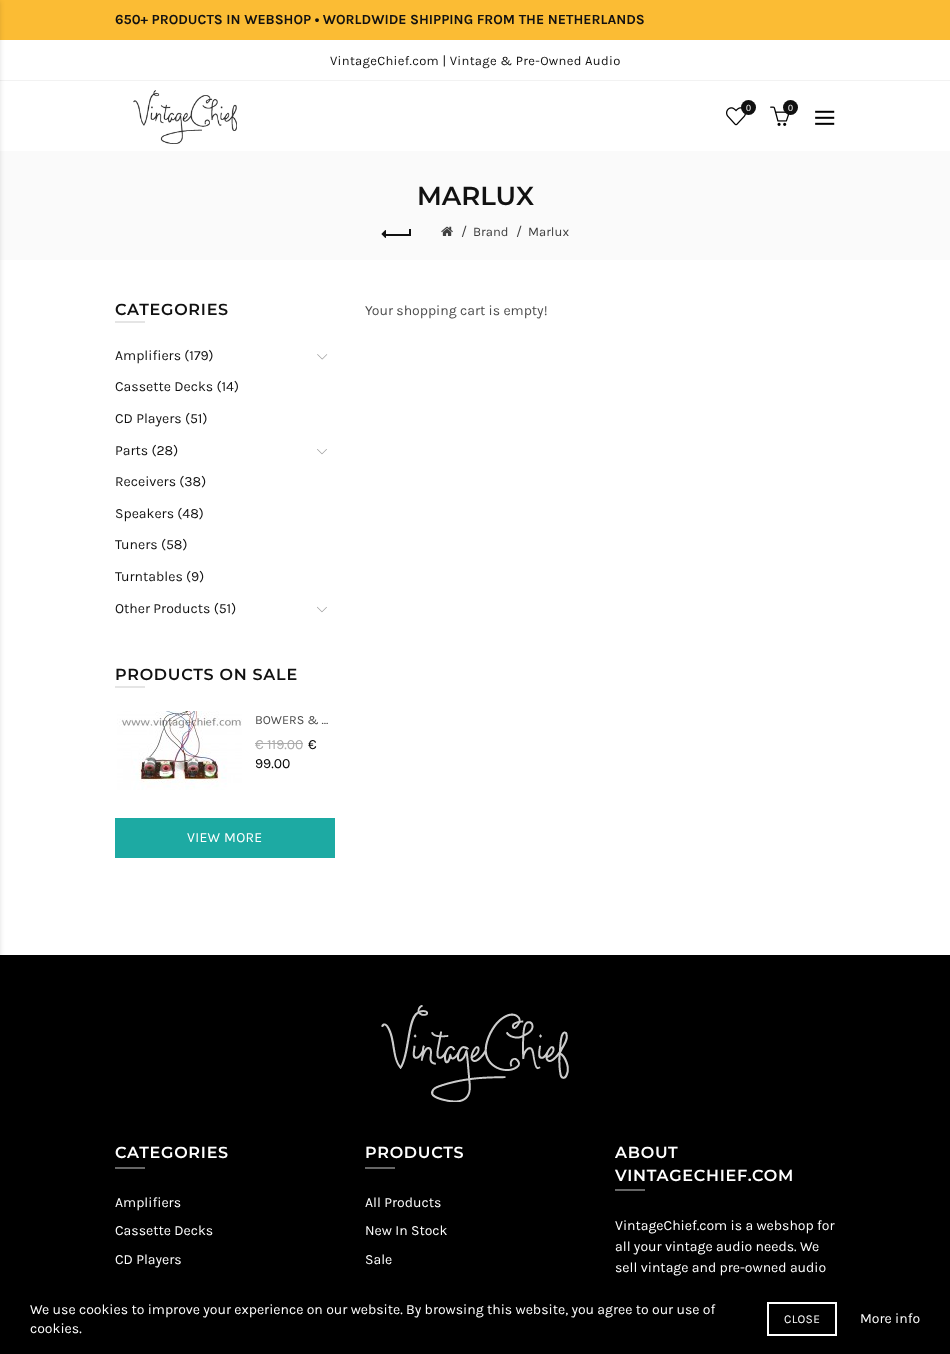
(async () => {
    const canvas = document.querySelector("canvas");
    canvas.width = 950;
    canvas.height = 1354;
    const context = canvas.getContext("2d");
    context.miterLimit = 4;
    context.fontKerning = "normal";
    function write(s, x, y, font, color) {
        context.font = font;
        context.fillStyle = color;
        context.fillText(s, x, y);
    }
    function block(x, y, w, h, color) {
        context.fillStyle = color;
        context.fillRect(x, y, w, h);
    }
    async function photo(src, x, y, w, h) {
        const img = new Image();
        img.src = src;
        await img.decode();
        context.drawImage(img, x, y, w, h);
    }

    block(0, 0, 950, 1354, "rgb(255, 255, 255)");
    block(0, 0, 950, 40, "rgb(251, 188, 52)");
    block(0, 80, 950, 1, "rgb(242, 242, 242)");
    block(0, 151, 950, 109, "rgb(250, 250, 250)");
    block(0, 955, 950, 328, "rgb(0, 0, 0)");
    context.fillStyle = "rgba(0, 0, 0, 0.13)";
    context.filter = "blur(2.5px)";
    context.beginPath();
    context.rect(-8, 1, 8, 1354);
    context.fill();
    context.filter = "none";
    write("650+ PRODUCTS IN WEBSHOP • WORLDWIDE SHIPPING FROM THE NETHERLANDS", 115, 24, "bold 14px Karla", "rgb(17, 17, 17)");
    context.letterSpacing = "0.3px";
    write("VintageChief.com | Vintage & Pre-Owned Audio", 330, 65, "13px Karla", "rgb(17, 17, 17)");
    await photo("media/1.png", 133, 90, 104, 54);
    await photo("media/2.png", 726, 107, 20, 19);
    context.beginPath();
    context.arc(748.5, 107.5, 7.5, 0, Math.PI * 2);
    context.fill();
    context.letterSpacing = "0px";
    write("0", 746, 111, "9px Liberation Sans", "rgb(255, 255, 255)");
    await photo("media/3.png", 770, 106, 20, 20);
    context.fillStyle = "rgb(17, 17, 17)";
    context.beginPath();
    context.arc(790.5, 107.5, 7.5, 0, Math.PI * 2);
    context.fill();
    write("0", 788, 111, "9px Liberation Sans", "rgb(255, 255, 255)");
    await photo("media/4.png", 815, 110, 20, 15);
    write("MARLUX", 417, 205, "600 26px Montserrat", "rgb(17, 17, 17)");
    block(385, 234, 25, 2, "rgb(17, 17, 17)");
    await photo("media/5.png", 381, 230, 5, 8);
    block(409, 229, 2, 7, "rgb(17, 17, 17)");
    await photo("media/6.png", 441, 226, 12, 10);
    write("/", 461, 236, "14px Karla", "rgb(64, 64, 64)");
    write("Brand", 473, 236, "13px Karla", "rgb(64, 64, 64)");
    write("/", 516, 236, "14px Karla", "rgb(64, 64, 64)");
    write("Marlux", 528, 236, "13px Karla", "rgb(64, 64, 64)");
    context.letterSpacing = "0.75px";
    write("CATEGORIES", 115, 315, "600 16px Montserrat", "rgb(17, 17, 17)");
    block(115, 321, 30, 2, "rgb(229, 229, 229)");
    context.letterSpacing = "0px";
    write("Amplifiers (179)", 115, 360, "14px Karla", "rgb(17, 17, 17)");
    await photo("media/7.png", 317, 354, 11, 6);
    write("Cassette Decks (14)", 115, 391, "14px Karla", "rgb(17, 17, 17)");
    write("CD Players (51)", 115, 423, "14px Karla", "rgb(17, 17, 17)");
    write("Parts (28)", 115, 455, "14px Karla", "rgb(17, 17, 17)");
    await photo("media/8.png", 317, 449, 10, 6);
    write("Receivers (38)", 115, 486, "14px Karla", "rgb(17, 17, 17)");
    write("Speakers (48)", 115, 518, "14px Karla", "rgb(17, 17, 17)");
    write("Tuners (58)", 115, 549, "14px Karla", "rgb(17, 17, 17)");
    write("Turntables (9)", 115, 581, "14px Karla", "rgb(17, 17, 17)");
    write("Other Products (51)", 115, 613, "14px Karla", "rgb(17, 17, 17)");
    await photo("media/9.png", 317, 606, 10, 7);
    context.letterSpacing = "0.75px";
    write("PRODUCTS ON SALE", 115, 680, "600 16px Montserrat", "rgb(17, 17, 17)");
    block(115, 686, 30, 2, "rgb(229, 229, 229)");
    await photo("media/10.png", 117, 711, 125, 79);
    context.letterSpacing = "0px";
    write("BOWERS & …", 255, 724, "12.5px Karla", "rgb(76, 76, 76)");
    write("€ 119.00", 255, 749, "14px Karla", "rgb(170, 170, 170)");
    block(255, 743, 48, 1, "rgb(170, 170, 170)");
    write("€", 308, 749, "14px Karla", "rgb(0, 0, 0)");
    write("99.00", 255, 768, "14px Karla", "rgb(0, 0, 0)");
    block(115, 818, 220, 40, "rgb(29, 170, 163)");
    context.letterSpacing = "0.3px";
    write("VIEW MORE", 187, 842, "14px Karla", "rgb(255, 255, 255)");
    context.letterSpacing = "0px";
    write("Your shopping cart is empty!", 365, 315, "14px Karla", "rgb(76, 76, 76)");
    await photo("media/11.png", 381, 1005, 188, 97);
    context.letterSpacing = "0.75px";
    write("CATEGORIES", 115, 1158, "600 16px Montserrat", "rgb(255, 255, 255)");
    block(115, 1167, 30, 2, "rgb(102, 102, 102)");
    context.letterSpacing = "0px";
    write("Amplifiers", 115, 1207, "14px Karla", "rgb(255, 255, 255)");
    write("Cassette Decks", 115, 1235, "14px Karla", "rgb(255, 255, 255)");
    write("CD Players", 115, 1264, "14px Karla", "rgb(255, 255, 255)");
    context.letterSpacing = "0.75px";
    write("PRODUCTS", 365, 1158, "600 16px Montserrat", "rgb(255, 255, 255)");
    block(365, 1167, 30, 2, "rgb(102, 102, 102)");
    context.letterSpacing = "0px";
    write("All Products", 365, 1207, "14px Karla", "rgb(255, 255, 255)");
    write("New In Stock", 365, 1235, "14px Karla", "rgb(255, 255, 255)");
    write("Sale", 365, 1264, "14px Karla", "rgb(255, 255, 255)");
    context.letterSpacing = "0.75px";
    write("ABOUT", 615, 1158, "600 16px Montserrat", "rgb(255, 255, 255)");
    write("VINTAGECHIEF.COM", 615, 1181, "600 16px Montserrat", "rgb(255, 255, 255)");
    block(615, 1189, 30, 2, "rgb(102, 102, 102)");
    context.letterSpacing = "0px";
    write("VintageChief.com is a webshop for", 615, 1230, "14px Karla", "rgb(255, 255, 255)");
    write("all your vintage audio needs. We", 615, 1251, "14px Karla", "rgb(255, 255, 255)");
    write("sell vintage and pre-owned audio", 615, 1272, "14px Karla", "rgb(255, 255, 255)");
    block(0, 1283, 950, 71, "rgb(0, 0, 0)");
    write("We use cookies to improve your experience on our website. By browsing this website, you agree to our use of", 30, 1314, "14px Karla", "rgb(255, 255, 255)");
    write("cookies.", 30, 1333, "14px Karla", "rgb(255, 255, 255)");
    context.strokeStyle = "rgb(255, 255, 255)";
    context.lineWidth = 2;
    context.strokeRect(768, 1303, 68, 32);
    context.letterSpacing = "0.3px";
    write("CLOSE", 784, 1323, "12px Karla", "rgb(255, 255, 255)");
    context.letterSpacing = "0px";
    write("More info", 860, 1323, "14px Karla", "rgb(255, 255, 255)");
})();
